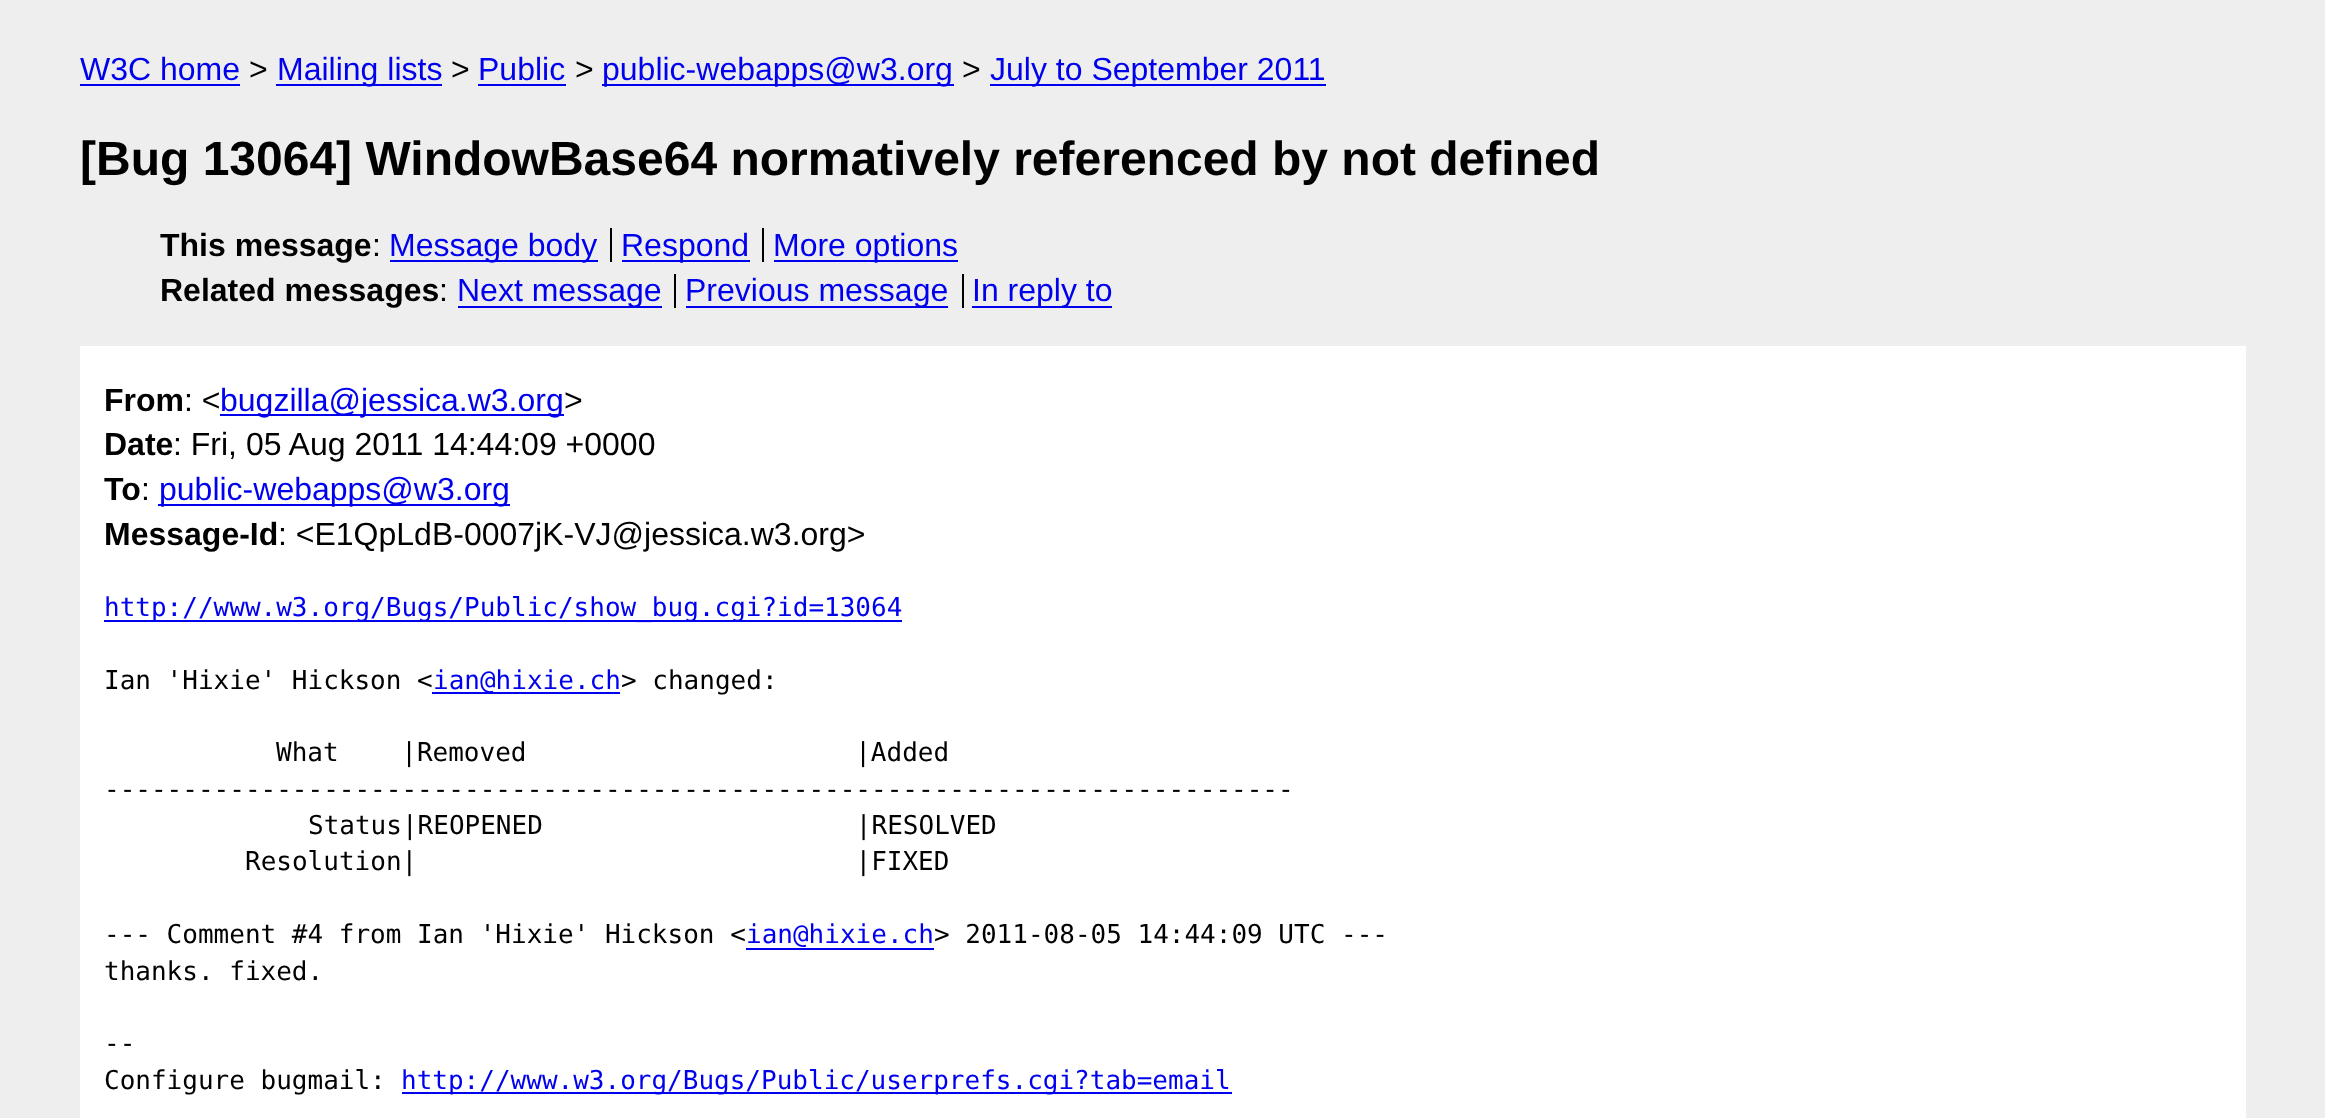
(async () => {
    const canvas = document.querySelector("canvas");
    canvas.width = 2325;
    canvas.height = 1118;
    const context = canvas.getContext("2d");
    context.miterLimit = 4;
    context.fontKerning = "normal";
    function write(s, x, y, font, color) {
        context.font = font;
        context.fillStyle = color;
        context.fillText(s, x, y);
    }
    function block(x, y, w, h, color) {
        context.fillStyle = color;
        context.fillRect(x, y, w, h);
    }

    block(0, 0, 2325, 1118, "rgb(238, 238, 238)");
    write("W3C home", 80, 80, "32px Liberation Sans", "rgb(0, 0, 238)");
    block(80, 84, 160, 2, "rgb(0, 0, 238)");
    write(">", 249, 80, "32px Liberation Sans", "rgb(0, 0, 0)");
    block(276, 84, 166, 2, "rgb(0, 0, 238)");
    write("Mailing lists", 277, 80, "32px Liberation Sans", "rgb(0, 0, 238)");
    write(">", 451, 80, "32px Liberation Sans", "rgb(0, 0, 0)");
    write("Public", 478, 80, "32px Liberation Sans", "rgb(0, 0, 238)");
    block(478, 84, 88, 2, "rgb(0, 0, 238)");
    write(">", 575, 80, "32px Liberation Sans", "rgb(0, 0, 0)");
    block(602, 84, 352, 2, "rgb(0, 0, 238)");
    write("public-webapps@w3.org", 602, 80, "32px Liberation Sans", "rgb(0, 0, 238)");
    write(">", 962, 80, "32px Liberation Sans", "rgb(0, 0, 0)");
    block(990, 84, 336, 2, "rgb(0, 0, 238)");
    write("July to September 2011", 990, 80, "32px Liberation Sans", "rgb(0, 0, 238)");
    write("[Bug 13064] WindowBase64 normatively referenced by not defined", 80, 175, "bold 48px Liberation Sans", "rgb(0, 0, 0)");
    write("This message", 160, 256, "bold 32px Liberation Sans", "rgb(0, 0, 0)");
    write(":", 372, 256, "32px Liberation Sans", "rgb(0, 0, 0)");
    block(390, 260, 208, 2, "rgb(0, 0, 238)");
    write("Message body", 389, 256, "32px Liberation Sans", "rgb(0, 0, 238)");
    block(622, 260, 128, 2, "rgb(0, 0, 238)");
    write("Respond", 621, 256, "32px Liberation Sans", "rgb(0, 0, 238)");
    block(610, 228, 2, 34, "rgb(0, 0, 0)");
    block(774, 260, 184, 2, "rgb(0, 0, 238)");
    write("More options", 773, 256, "32px Liberation Sans", "rgb(0, 0, 238)");
    block(762, 228, 2, 34, "rgb(0, 0, 0)");
    write("Related messages", 160, 301, "bold 32px Liberation Sans", "rgb(0, 0, 0)");
    write(":", 439, 301, "32px Liberation Sans", "rgb(0, 0, 0)");
    block(458, 306, 204, 2, "rgb(0, 0, 238)");
    write("Next message", 457, 301, "32px Liberation Sans", "rgb(0, 0, 238)");
    block(686, 306, 262, 2, "rgb(0, 0, 238)");
    write("Previous message", 685, 301, "32px Liberation Sans", "rgb(0, 0, 238)");
    block(674, 274, 2, 34, "rgb(0, 0, 0)");
    block(972, 306, 140, 2, "rgb(0, 0, 238)");
    write("In reply to", 972, 301, "32px Liberation Sans", "rgb(0, 0, 238)");
    block(962, 274, 2, 34, "rgb(0, 0, 0)");
    block(80, 346, 2166, 772, "rgb(255, 255, 255)");
    write("From", 104, 411, "bold 32px Liberation Sans", "rgb(0, 0, 0)");
    write(": <", 184, 411, "32px Liberation Sans", "rgb(0, 0, 0)");
    block(220, 414, 344, 2, "rgb(0, 0, 238)");
    write("bugzilla@jessica.w3.org", 220, 411, "32px Liberation Sans", "rgb(0, 0, 238)");
    write(">", 564, 411, "32px Liberation Sans", "rgb(0, 0, 0)");
    write("Date", 104, 455, "bold 32px Liberation Sans", "rgb(0, 0, 0)");
    write(": Fri, 05 Aug 2011 14:44:09 +0000", 173, 455, "32px Liberation Sans", "rgb(0, 0, 0)");
    write("To", 104, 500, "bold 32px Liberation Sans", "rgb(0, 0, 0)");
    write(":", 141, 500, "32px Liberation Sans", "rgb(0, 0, 0)");
    block(158, 504, 352, 2, "rgb(0, 0, 238)");
    write("public-webapps@w3.org", 159, 500, "32px Liberation Sans", "rgb(0, 0, 238)");
    write("Message-Id", 104, 545, "bold 32px Liberation Sans", "rgb(0, 0, 0)");
    write(": <E1QpLdB-0007jK-VJ@jessica.w3.org>", 278, 545, "32px Liberation Sans", "rgb(0, 0, 0)");
    block(104, 620, 798, 2, "rgb(0, 0, 238)");
    write("http://www.w3.org/Bugs/Public/show_bug.cgi?id=13064", 104, 616, "26px DejaVu Sans Mono", "rgb(0, 0, 238)");
    write("Ian 'Hixie' Hickson <", 104, 689, "26px DejaVu Sans Mono", "rgb(0, 0, 0)");
    block(432, 692, 188, 2, "rgb(0, 0, 238)");
    write("ian@hixie.ch", 433, 689, "26px DejaVu Sans Mono", "rgb(0, 0, 238)");
    write("> changed:", 621, 689, "26px DejaVu Sans Mono", "rgb(0, 0, 0)");
    write("What    |Removed                     |Added", 276, 761, "26px DejaVu Sans Mono", "rgb(0, 0, 0)");
    write("----------------------------------------------------------------------------", 104, 798, "26px DejaVu Sans Mono", "rgb(0, 0, 0)");
    write("Status|REOPENED                    |RESOLVED", 308, 834, "26px DejaVu Sans Mono", "rgb(0, 0, 0)");
    write("Resolution|                            |FIXED", 245, 870, "26px DejaVu Sans Mono", "rgb(0, 0, 0)");
    write("--- Comment #4 from Ian 'Hixie' Hickson <", 104, 943, "26px DejaVu Sans Mono", "rgb(0, 0, 0)");
    write("ian@hixie.ch", 746, 943, "26px DejaVu Sans Mono", "rgb(0, 0, 238)");
    block(746, 948, 188, 2, "rgb(0, 0, 238)");
    write("> 2011-08-05 14:44:09 UTC ---", 934, 943, "26px DejaVu Sans Mono", "rgb(0, 0, 0)");
    write("thanks. fixed.", 104, 980, "26px DejaVu Sans Mono", "rgb(0, 0, 0)");
    write("--", 104, 1052, "26px DejaVu Sans Mono", "rgb(0, 0, 0)");
    write("Configure bugmail:", 104, 1089, "26px DejaVu Sans Mono", "rgb(0, 0, 0)");
    block(402, 1092, 830, 2, "rgb(0, 0, 238)");
    write("http://www.w3.org/Bugs/Public/userprefs.cgi?tab=email", 401, 1089, "26px DejaVu Sans Mono", "rgb(0, 0, 238)");
})();
